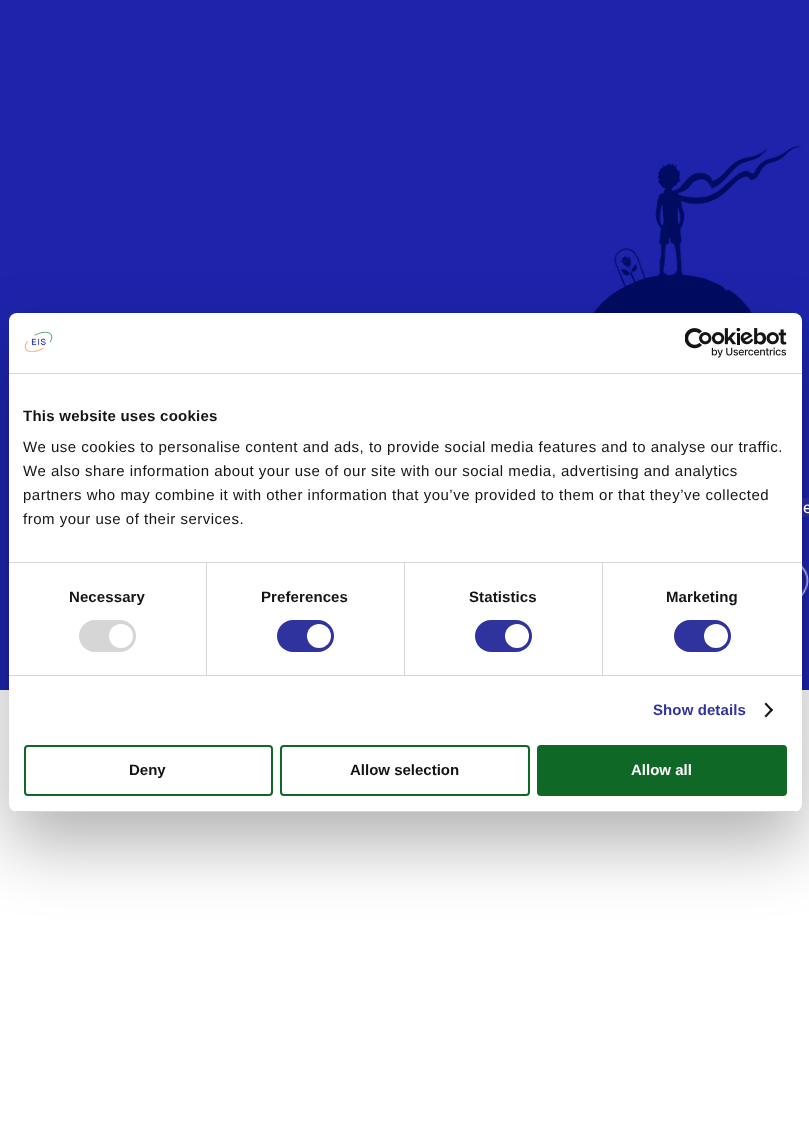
(async () => {
    const canvas = document.querySelector("canvas");
    canvas.width = 809;
    canvas.height = 1124;
    const context = canvas.getContext("2d");
    context.miterLimit = 4;
    context.fontKerning = "normal";
    function write(s, x, y, font, color) {
        context.font = font;
        context.fillStyle = color;
        context.fillText(s, x, y);
    }
    function block(x, y, w, h, color) {
        context.fillStyle = color;
        context.fillRect(x, y, w, h);
    }
    function card(x, y, w, h, r, color) {
        context.fillStyle = color;
        context.beginPath();
        context.roundRect(x, y, w, h, r);
        context.fill();
    }
    async function photo(src, x, y, w, h) {
        const img = new Image();
        img.src = src;
        await img.decode();
        context.drawImage(img, x, y, w, h);
    }

    block(0, 0, 809, 1124, "rgb(255, 255, 255)");
    block(0, 0, 809, 690, "rgb(29, 36, 171)");
    await photo("media/3.png", 593, 144, 209, 169);
    block(802, 498, 7, 19, "rgb(45, 45, 165)");
    await photo("media/4.png", 802, 565, 7, 32);
    context.fillStyle = "rgba(0, 0, 0, 0.3)";
    context.filter = "blur(34px)";
    context.beginPath();
    context.roundRect(9, 345, 793, 499, 8);
    context.fill();
    context.filter = "none";
    card(9, 313, 793, 499, 8, "rgb(255, 255, 255)");
    block(9, 373, 793, 1, "rgb(214, 214, 214)");
    await photo("media/1.png", 24, 331, 29, 22);
    await photo("media/2.png", 685, 328, 102, 30);
    block(9, 562, 793, 1, "rgb(214, 214, 214)");
    context.letterSpacing = "0.25px";
    write("This website uses cookies", 23, 421, "bold 15px Liberation Sans", "rgb(20, 20, 20)");
    context.letterSpacing = "0.5px";
    write("We use cookies to personalise content and ads, to provide social media features and to analyse our traffic.", 23, 452, "15px Liberation Sans", "rgb(20, 20, 20)");
    write("We also share information about your use of our site with our social media, advertising and analytics", 23, 476, "15px Liberation Sans", "rgb(20, 20, 20)");
    write("partners who may combine it with other information that you’ve provided to them or that they’ve collected", 23, 500, "15px Liberation Sans", "rgb(20, 20, 20)");
    write("from your use of their services.", 23, 524, "15px Liberation Sans", "rgb(20, 20, 20)");
    block(9, 675, 793, 1, "rgb(214, 214, 214)");
    block(206, 563, 1, 112, "rgb(214, 214, 214)");
    context.letterSpacing = "0.1px";
    write("Necessary", 69, 602, "bold 15px Liberation Sans", "rgb(20, 20, 20)");
    card(79, 620, 57, 32, 16, "rgb(214, 214, 214)");
    context.fillStyle = "rgb(255, 255, 255)";
    context.beginPath();
    context.arc(121, 636, 12, 0, Math.PI * 2);
    context.fill();
    block(404, 563, 1, 112, "rgb(214, 214, 214)");
    write("Preferences", 261, 602, "bold 15px Liberation Sans", "rgb(20, 20, 20)");
    card(277, 620, 57, 32, 16, "rgb(47, 51, 158)");
    context.fillStyle = "rgb(255, 255, 255)";
    context.beginPath();
    context.arc(319, 636, 12, 0, Math.PI * 2);
    context.fill();
    block(602, 563, 1, 112, "rgb(214, 214, 214)");
    write("Statistics", 469, 602, "bold 15px Liberation Sans", "rgb(20, 20, 20)");
    card(475, 620, 57, 32, 16, "rgb(47, 51, 158)");
    context.fillStyle = "rgb(255, 255, 255)";
    context.beginPath();
    context.arc(517, 636, 12, 0, Math.PI * 2);
    context.fill();
    write("Marketing", 666, 602, "bold 15px Liberation Sans", "rgb(20, 20, 20)");
    card(674, 620, 57, 32, 16, "rgb(47, 51, 158)");
    context.fillStyle = "rgb(255, 255, 255)";
    context.beginPath();
    context.arc(716, 636, 12, 0, Math.PI * 2);
    context.fill();
    write("Show details", 653, 715, "bold 15px Liberation Sans", "rgb(47, 51, 158)");
    context.fillStyle = "rgb(20, 20, 20)";
    context.beginPath();
    context.moveTo(766, 702.5);
    context.lineTo(773, 710);
    context.lineTo(771.5, 711.5);
    context.lineTo(764.5, 704);
    context.closePath();
    context.fill();
    context.beginPath();
    context.moveTo(771.5, 708.5);
    context.lineTo(773, 710);
    context.lineTo(766, 717.5);
    context.lineTo(764.5, 716);
    context.closePath();
    context.fill();
    context.save();
    context.beginPath();
    context.roundRect(9, 313, 793, 499, 8);
    context.clip();
    block(9, 811, 793, 1, "rgb(214, 214, 214)");
    context.restore();
    context.beginPath();
    context.roundRect(25, 746, 247, 49, 3);
    context.strokeStyle = "rgb(15, 104, 38)";
    context.lineWidth = 2;
    context.stroke();
    context.letterSpacing = "0px";
    write("Deny", 129, 775, "bold 15px Liberation Sans", "rgb(20, 20, 20)");
    context.beginPath();
    context.roundRect(281, 746, 248, 49, 3);
    context.stroke();
    write("Allow selection", 350, 775, "bold 15px Liberation Sans", "rgb(20, 20, 20)");
    context.fillStyle = "rgb(15, 104, 38)";
    context.beginPath();
    context.roundRect(538, 746, 248, 49, 3);
    context.fill();
    context.stroke();
    write("Allow all", 631, 775, "bold 15px Liberation Sans", "rgb(255, 255, 255)");
    write("e", 803, 513, "16px Roboto", "rgb(255, 255, 255)");
})();
